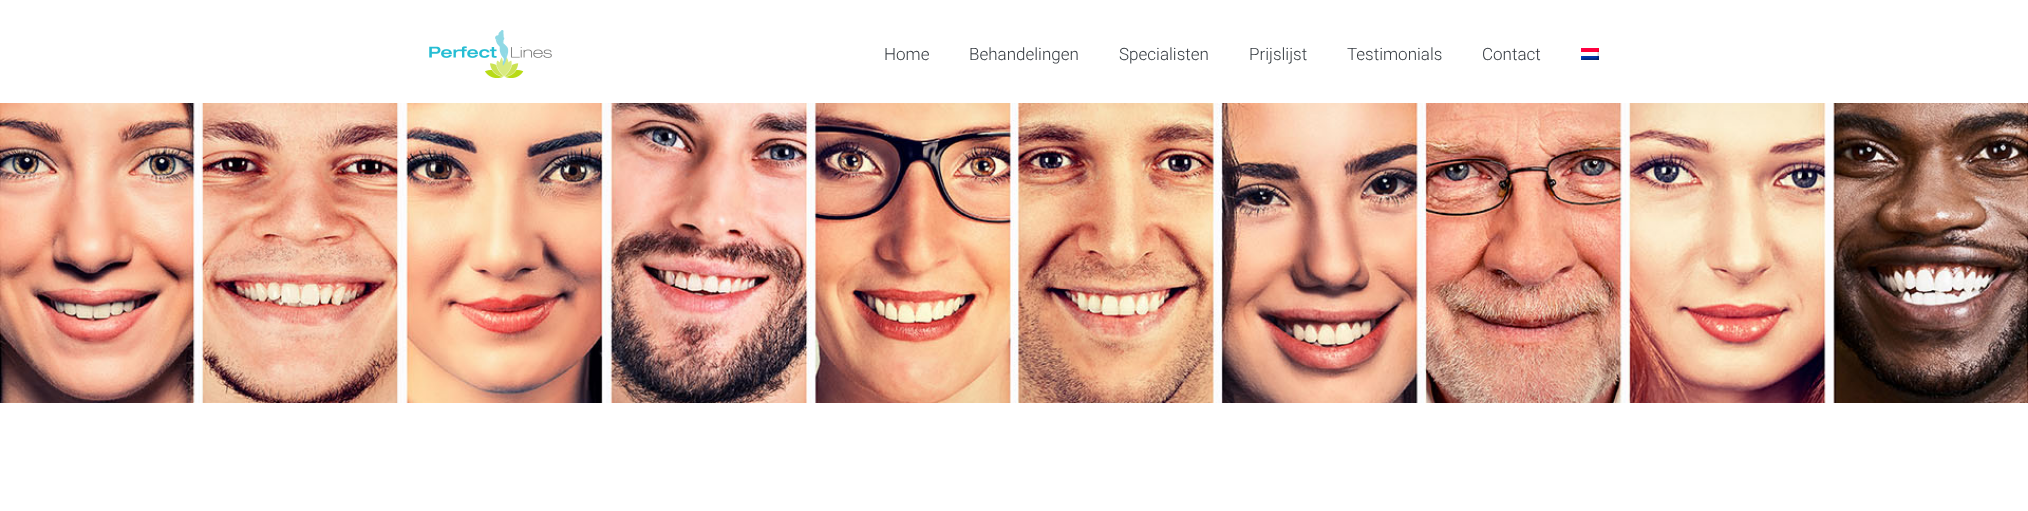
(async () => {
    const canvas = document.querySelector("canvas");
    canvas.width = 2028;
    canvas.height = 511;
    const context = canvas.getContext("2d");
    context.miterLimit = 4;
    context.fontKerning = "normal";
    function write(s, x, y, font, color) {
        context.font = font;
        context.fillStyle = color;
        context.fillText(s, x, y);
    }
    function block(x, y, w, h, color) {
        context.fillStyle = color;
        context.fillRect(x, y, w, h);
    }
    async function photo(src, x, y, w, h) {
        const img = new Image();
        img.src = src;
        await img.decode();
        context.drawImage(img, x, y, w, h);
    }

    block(0, 0, 2028, 511, "rgb(255, 255, 255)");
    await photo("media/1.png", 429, 30, 123, 48);
    write("Home", 884, 60, "300 17px Roboto", "rgb(52, 58, 64)");
    write("Behandelingen", 969, 60, "300 17px Roboto", "rgb(52, 58, 64)");
    write("Specialisten", 1119, 60, "300 17px Roboto", "rgb(52, 58, 64)");
    write("Prijslijst", 1249, 60, "300 17px Roboto", "rgb(52, 58, 64)");
    write("Testimonials", 1347, 60, "300 17px Roboto", "rgb(52, 58, 64)");
    write("Contact", 1482, 60, "300 17px Roboto", "rgb(52, 58, 64)");
    await photo("media/2.png", 1581, 48, 18, 12);
    await photo("media/3.png", 0, 103, 2028, 300);
})();
